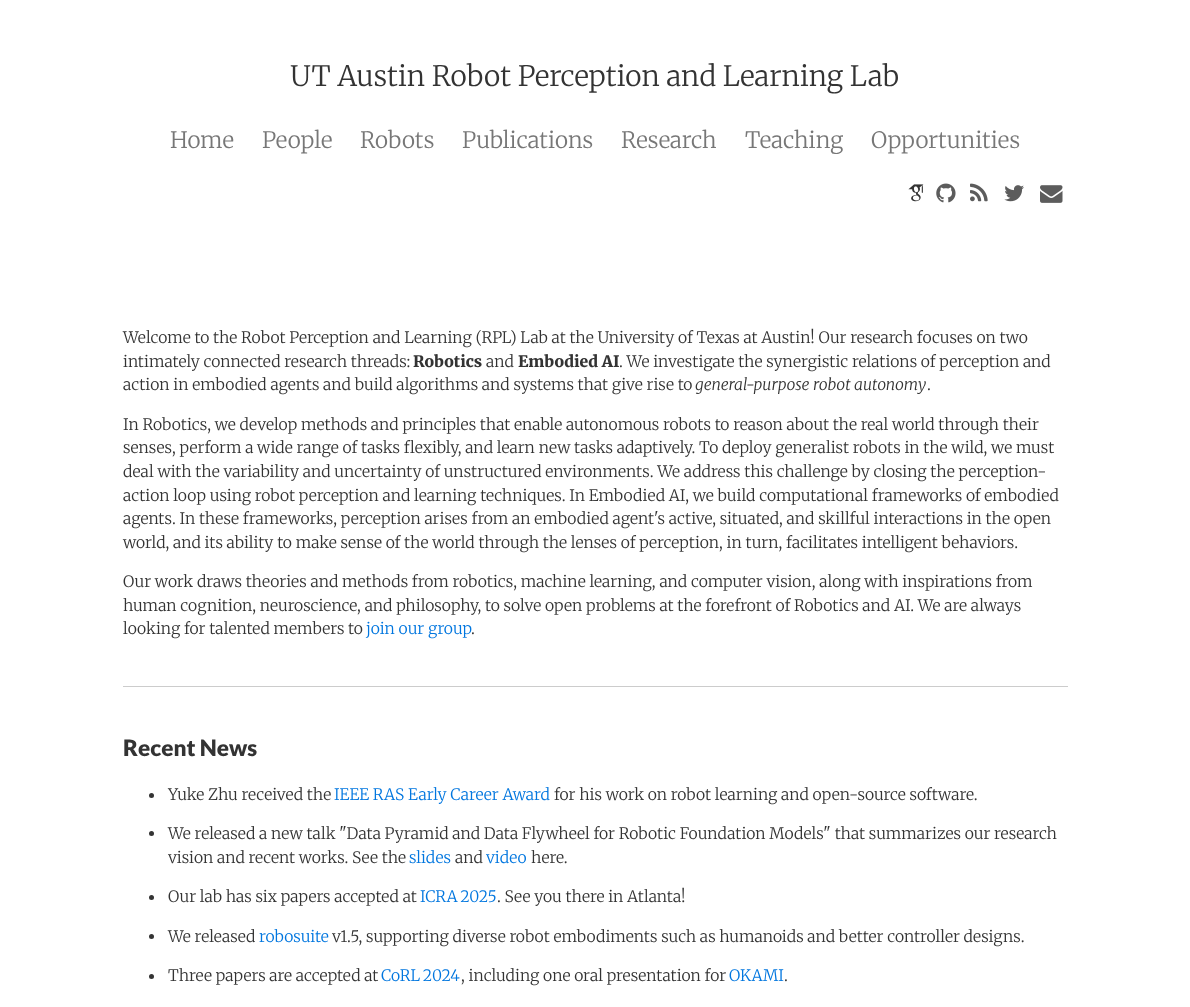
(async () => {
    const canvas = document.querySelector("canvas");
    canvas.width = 1190;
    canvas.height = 1007;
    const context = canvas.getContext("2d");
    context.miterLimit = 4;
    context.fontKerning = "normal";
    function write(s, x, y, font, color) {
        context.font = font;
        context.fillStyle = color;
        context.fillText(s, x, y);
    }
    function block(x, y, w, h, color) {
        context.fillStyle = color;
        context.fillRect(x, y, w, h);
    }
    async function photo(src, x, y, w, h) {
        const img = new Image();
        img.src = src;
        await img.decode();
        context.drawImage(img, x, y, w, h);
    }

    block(0, 0, 1190, 1007, "rgb(255, 255, 255)");
    write("UT Austin Robot Perception and Learning Lab", 290, 86, "300 28.1px Merriweather", "rgb(51, 51, 51)");
    write("Home", 170, 148, "300 22.5px Merriweather", "rgb(119, 119, 119)");
    write("People", 262, 148, "300 22.5px Merriweather", "rgb(119, 119, 119)");
    write("Robots", 360, 148, "300 22.5px Merriweather", "rgb(119, 119, 119)");
    write("Publications", 462, 148, "300 22.5px Merriweather", "rgb(119, 119, 119)");
    write("Research", 621, 148, "300 22.5px Merriweather", "rgb(119, 119, 119)");
    write("Teaching", 745, 148, "300 22.5px Merriweather", "rgb(119, 119, 119)");
    write("Opportunities", 871, 148, "300 22.5px Merriweather", "rgb(119, 119, 119)");
    await photo("media/1.png", 908, 184, 16, 18);
    await photo("media/2.png", 936, 183, 20, 20);
    await photo("media/3.png", 970, 183, 18, 19);
    await photo("media/4.png", 1004, 185, 20, 17);
    await photo("media/5.png", 1040, 185, 23, 18);
    write("Welcome to the Robot Perception and Learning (RPL) Lab at the University of Texas at Austin! Our research focuses on two", 123, 343, "300 15.75px Merriweather", "rgb(51, 51, 51)");
    write("intimately connected research threads:", 123, 367, "300 15.75px Merriweather", "rgb(51, 51, 51)");
    write("Robotics", 413, 367, "900 15.75px Merriweather", "rgb(51, 51, 51)");
    write("and", 486, 367, "300 15.75px Merriweather", "rgb(51, 51, 51)");
    write("Embodied AI", 518, 367, "900 15.75px Merriweather", "rgb(51, 51, 51)");
    write(". We investigate the synergistic relations of perception and", 619, 367, "300 15.75px Merriweather", "rgb(51, 51, 51)");
    write("action in embodied agents and build algorithms and systems that give rise to", 123, 390, "300 15.75px Merriweather", "rgb(51, 51, 51)");
    write("general-purpose robot autonomy", 695, 390, "italic 300 15.75px Merriweather", "rgb(51, 51, 51)");
    write(".", 927, 390, "300 15.75px Merriweather", "rgb(51, 51, 51)");
    write("In Robotics, we develop methods and principles that enable autonomous robots to reason about the real world through their", 123, 430, "300 15.75px Merriweather", "rgb(51, 51, 51)");
    write("senses, perform a wide range of tasks flexibly, and learn new tasks adaptively. To deploy generalist robots in the wild, we must", 123, 453, "300 15.75px Merriweather", "rgb(51, 51, 51)");
    write("deal with the variability and uncertainty of unstructured environments. We address this challenge by closing the perception-", 123, 477, "300 15.75px Merriweather", "rgb(51, 51, 51)");
    write("action loop using robot perception and learning techniques. In Embodied AI, we build computational frameworks of embodied", 123, 501, "300 15.75px Merriweather", "rgb(51, 51, 51)");
    write("agents. In these frameworks, perception arises from an embodied agent's active, situated, and skillful interactions in the open", 123, 524, "300 15.75px Merriweather", "rgb(51, 51, 51)");
    write("world, and its ability to make sense of the world through the lenses of perception, in turn, facilitates intelligent behaviors.", 123, 548, "300 15.75px Merriweather", "rgb(51, 51, 51)");
    write("Our work draws theories and methods from robotics, machine learning, and computer vision, along with inspirations from", 123, 587, "300 15.75px Merriweather", "rgb(51, 51, 51)");
    write("human cognition, neuroscience, and philosophy, to solve open problems at the forefront of Robotics and AI. We are always", 123, 611, "300 15.75px Merriweather", "rgb(51, 51, 51)");
    write("looking for talented members to", 123, 634, "300 15.75px Merriweather", "rgb(51, 51, 51)");
    write("join our group", 366, 634, "300 15.75px Merriweather", "rgb(0, 118, 223)");
    write(".", 471, 634, "300 15.75px Merriweather", "rgb(51, 51, 51)");
    block(123, 686, 945, 1, "rgb(204, 204, 204)");
    write("Recent News", 123, 756, "900 22.5px Lato", "rgb(51, 51, 51)");
    context.beginPath();
    context.arc(151.5, 795.5, 2.5, 0, Math.PI * 2);
    context.fill();
    write("Yuke Zhu received the", 168, 800, "300 15.75px Merriweather", "rgb(51, 51, 51)");
    write("IEEE RAS Early Career Award", 334, 800, "300 15.75px Merriweather", "rgb(0, 118, 223)");
    write("for his work on robot learning and open-source software.", 554, 800, "300 15.75px Merriweather", "rgb(51, 51, 51)");
    context.beginPath();
    context.arc(151.5, 833.5, 2.5, 0, Math.PI * 2);
    context.fill();
    write("We released a new talk \"Data Pyramid and Data Flywheel for Robotic Foundation Models\" that summarizes our research", 168, 839, "300 15.75px Merriweather", "rgb(51, 51, 51)");
    write("vision and recent works. See the", 168, 863, "300 15.75px Merriweather", "rgb(51, 51, 51)");
    write("slides", 409, 863, "300 15.75px Merriweather", "rgb(0, 118, 223)");
    write("and", 455, 863, "300 15.75px Merriweather", "rgb(51, 51, 51)");
    write("video", 486, 863, "300 15.75px Merriweather", "rgb(0, 118, 223)");
    write("here.", 531, 863, "300 15.75px Merriweather", "rgb(51, 51, 51)");
    context.beginPath();
    context.arc(151.5, 897.5, 2.5, 0, Math.PI * 2);
    context.fill();
    write("Our lab has six papers accepted at", 168, 902, "300 15.75px Merriweather", "rgb(51, 51, 51)");
    context.wordSpacing = "-1px";
    write("ICRA 2025", 420, 902, "300 15.75px Merriweather", "rgb(0, 118, 223)");
    context.wordSpacing = "0px";
    write(". See you there in Atlanta!", 497, 902, "300 15.75px Merriweather", "rgb(51, 51, 51)");
    context.beginPath();
    context.arc(151.5, 936.5, 2.5, 0, Math.PI * 2);
    context.fill();
    write("We released", 168, 942, "300 15.75px Merriweather", "rgb(51, 51, 51)");
    write("robosuite", 259, 942, "300 15.75px Merriweather", "rgb(0, 118, 223)");
    write("v1.5, supporting diverse robot embodiments such as humanoids and better controller designs.", 332, 942, "300 15.75px Merriweather", "rgb(51, 51, 51)");
    context.beginPath();
    context.arc(151.5, 976.5, 2.5, 0, Math.PI * 2);
    context.fill();
    write("Three papers are accepted at", 168, 981, "300 15.75px Merriweather", "rgb(51, 51, 51)");
    context.wordSpacing = "-1px";
    write("CoRL 2024", 381, 981, "300 15.75px Merriweather", "rgb(0, 118, 223)");
    context.wordSpacing = "0px";
    write(", including one oral presentation for", 461, 981, "300 15.75px Merriweather", "rgb(51, 51, 51)");
    write("OKAMI", 729, 981, "300 15.75px Merriweather", "rgb(0, 118, 223)");
    write(".", 784, 981, "300 15.75px Merriweather", "rgb(51, 51, 51)");
})();
